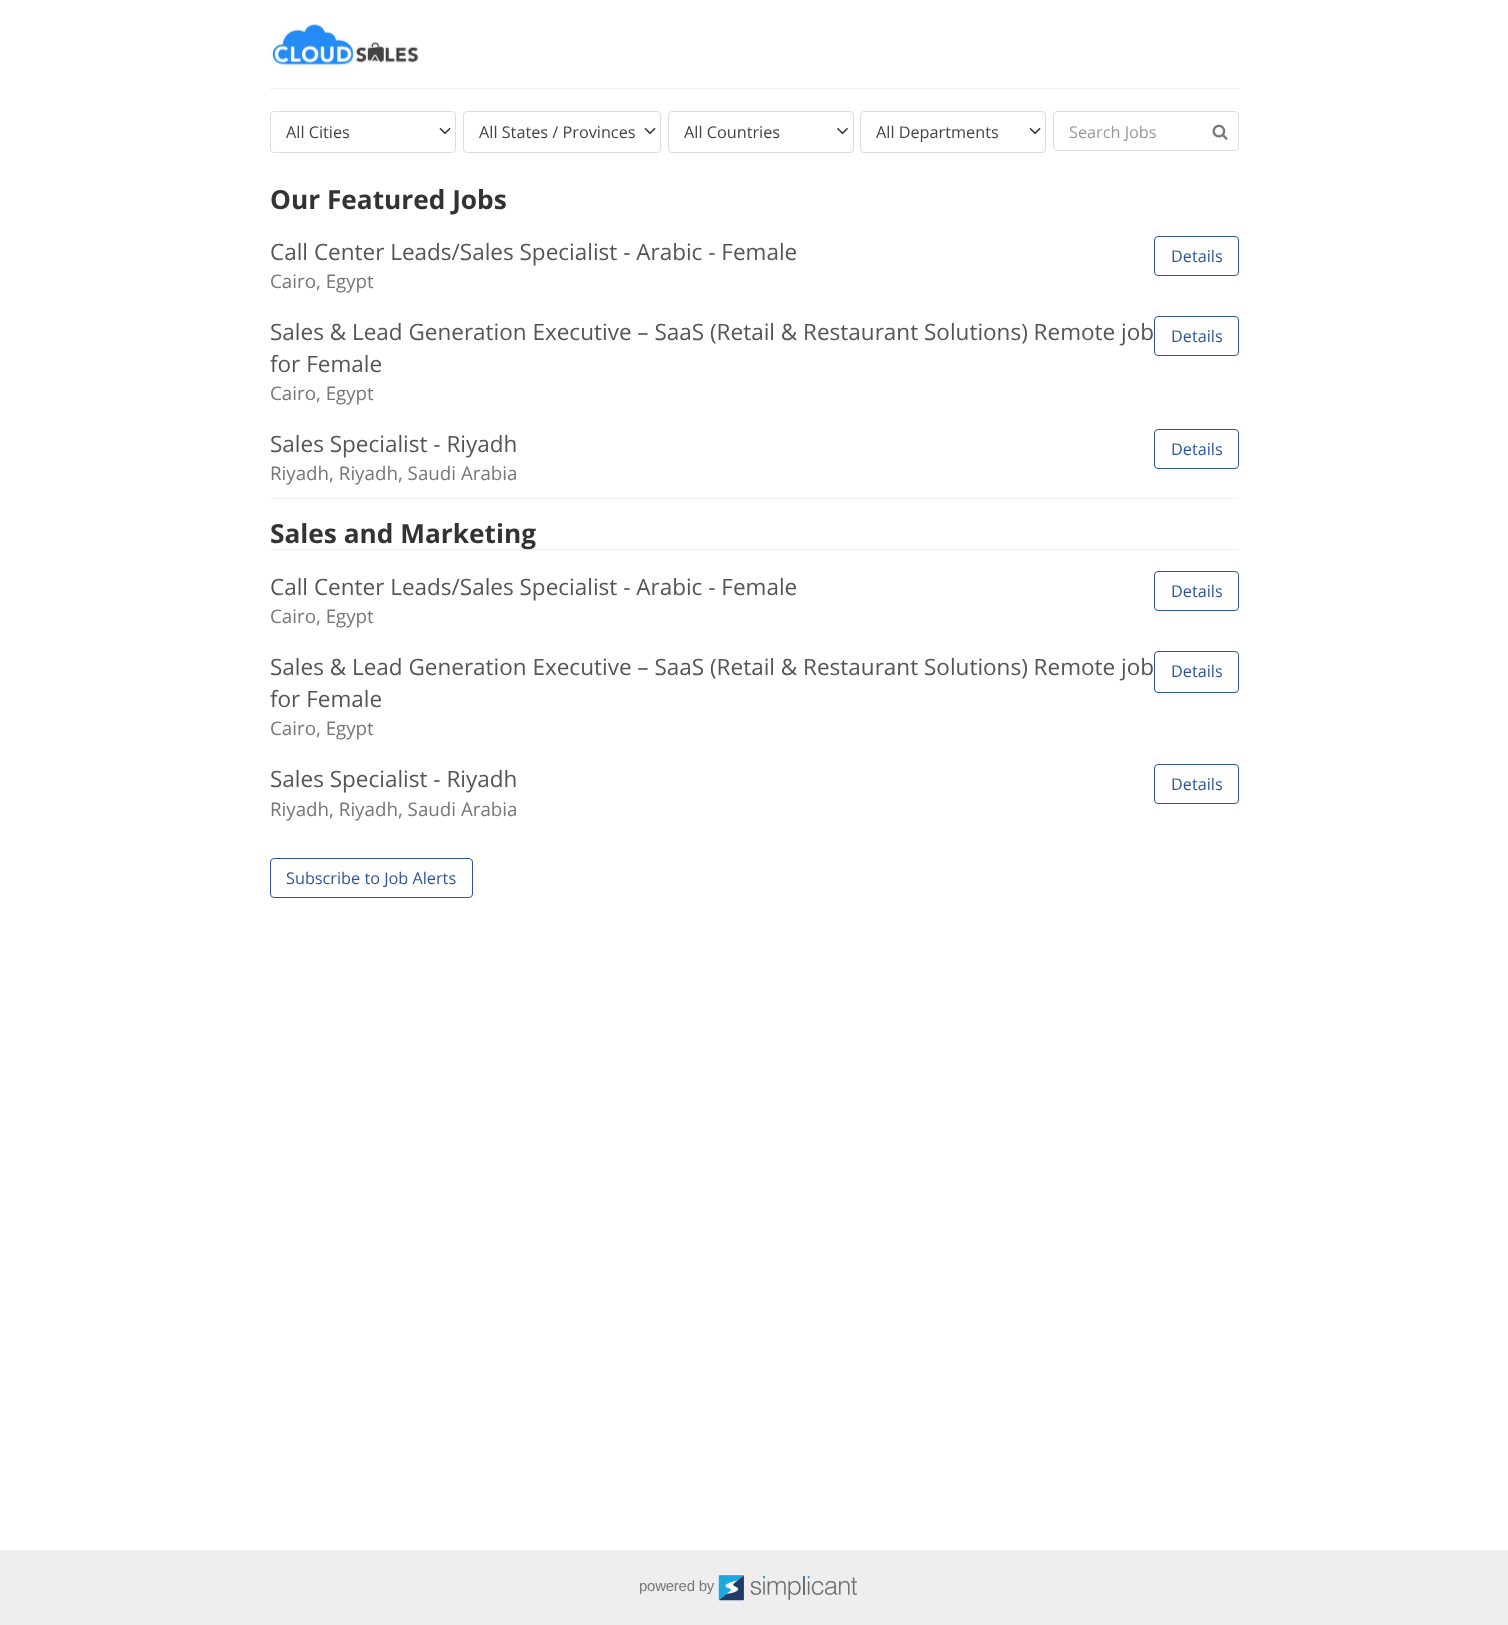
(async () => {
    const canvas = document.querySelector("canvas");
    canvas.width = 1508;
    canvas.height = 1625;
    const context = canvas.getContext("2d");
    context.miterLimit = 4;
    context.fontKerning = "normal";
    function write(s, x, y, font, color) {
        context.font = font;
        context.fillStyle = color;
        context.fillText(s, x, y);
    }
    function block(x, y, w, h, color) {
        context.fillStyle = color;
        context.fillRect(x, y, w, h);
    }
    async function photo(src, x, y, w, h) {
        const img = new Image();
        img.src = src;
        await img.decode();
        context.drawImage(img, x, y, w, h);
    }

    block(0, 0, 1508, 1625, "rgb(255, 255, 255)");
    await photo("media/1.png", 270, 22, 149, 44);
    block(270, 88, 969, 1, "rgb(238, 238, 238)");
    context.beginPath();
    context.roundRect(270.5, 111.5, 185, 41, 3.5);
    context.strokeStyle = "rgb(221, 221, 221)";
    context.stroke();
    write("All Cities", 286, 138, "16.25px Open Sans", "rgb(68, 68, 68)");
    await photo("media/2.png", 439, 127, 12, 8);
    context.beginPath();
    context.roundRect(463.5, 111.5, 197, 41, 3.5);
    context.stroke();
    write("All States / Provinces", 479, 138, "16.25px Open Sans", "rgb(68, 68, 68)");
    await photo("media/2.png", 644, 127, 12, 8);
    context.beginPath();
    context.roundRect(668.5, 111.5, 185, 41, 3.5);
    context.stroke();
    write("All Countries", 684, 138, "16.25px Open Sans", "rgb(68, 68, 68)");
    await photo("media/3.png", 837, 128, 11, 7);
    context.beginPath();
    context.roundRect(860.5, 111.5, 185, 41, 3.5);
    context.stroke();
    write("All Departments", 876, 138, "16.25px Open Sans", "rgb(68, 68, 68)");
    await photo("media/2.png", 1029, 127, 12, 8);
    context.beginPath();
    context.roundRect(1053.5, 111.5, 185, 39, 3.5);
    context.stroke();
    write("Search Jobs", 1069, 138, "16.25px Open Sans", "rgb(153, 153, 153)");
    await photo("media/4.png", 1212, 124, 16, 16);
    write("Our Featured Jobs", 270, 209, "bold 26.25px Open Sans", "rgb(51, 51, 51)");
    context.save();
    context.beginPath();
    context.moveTo(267, 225);
    context.lineTo(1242, 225);
    context.lineTo(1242, 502);
    context.lineTo(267, 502);
    context.closePath();
    context.moveTo(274, 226);
    context.lineTo(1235, 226);
    context.bezierCurveTo(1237, 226, 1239, 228, 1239, 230);
    context.lineTo(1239, 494);
    context.bezierCurveTo(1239, 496, 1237, 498, 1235, 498);
    context.lineTo(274, 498);
    context.bezierCurveTo(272, 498, 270, 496, 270, 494);
    context.lineTo(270, 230);
    context.bezierCurveTo(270, 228, 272, 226, 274, 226);
    context.closePath();
    context.clip("evenodd");
    context.fillStyle = "rgba(0, 0, 0, 0.05)";
    context.filter = "blur(0.5px)";
    context.beginPath();
    context.roundRect(270, 228, 969, 271, 4);
    context.fill();
    context.filter = "none";
    context.restore();
    write("Call Center Leads/Sales Specialist - Arabic - Female", 270, 260, "22.5px Open Sans", "rgb(85, 85, 85)");
    context.beginPath();
    context.roundRect(1154.5, 236.5, 84, 39, 3.5);
    context.strokeStyle = "rgb(44, 85, 156)";
    context.stroke();
    write("Details", 1171, 262, "16.25px Open Sans", "rgb(44, 85, 156)");
    write("Cairo, Egypt", 270, 288, "18.75px Open Sans", "rgb(119, 119, 119)");
    write("Sales & Lead Generation Executive – SaaS (Retail & Restaurant Solutions) Remote job", 270, 340, "22.5px Open Sans", "rgb(85, 85, 85)");
    write("for Female", 270, 372, "22.5px Open Sans", "rgb(85, 85, 85)");
    context.beginPath();
    context.roundRect(1154.5, 316.5, 84, 39, 3.5);
    context.stroke();
    write("Details", 1171, 342, "16.25px Open Sans", "rgb(44, 85, 156)");
    write("Cairo, Egypt", 270, 400, "18.75px Open Sans", "rgb(119, 119, 119)");
    write("Sales Specialist - Riyadh", 270, 452, "22.5px Open Sans", "rgb(85, 85, 85)");
    context.beginPath();
    context.roundRect(1154.5, 429.5, 84, 39, 3.5);
    context.stroke();
    write("Details", 1171, 455, "16.25px Open Sans", "rgb(44, 85, 156)");
    write("Riyadh, Riyadh, Saudi Arabia", 270, 480, "18.75px Open Sans", "rgb(119, 119, 119)");
    block(270, 549, 969, 1, "rgb(238, 238, 238)");
    write("Sales and Marketing", 270, 543, "bold 26.25px Open Sans", "rgb(51, 51, 51)");
    write("Call Center Leads/Sales Specialist - Arabic - Female", 270, 595, "22.5px Open Sans", "rgb(85, 85, 85)");
    context.beginPath();
    context.roundRect(1154.5, 571.5, 84, 39, 3.5);
    context.stroke();
    write("Details", 1171, 597, "16.25px Open Sans", "rgb(44, 85, 156)");
    write("Cairo, Egypt", 270, 623, "18.75px Open Sans", "rgb(119, 119, 119)");
    write("Sales & Lead Generation Executive – SaaS (Retail & Restaurant Solutions) Remote job", 270, 675, "22.5px Open Sans", "rgb(85, 85, 85)");
    write("for Female", 270, 707, "22.5px Open Sans", "rgb(85, 85, 85)");
    context.beginPath();
    context.roundRect(1154.5, 651.5, 84, 41, 3.5);
    context.stroke();
    write("Details", 1171, 677, "16.25px Open Sans", "rgb(44, 85, 156)");
    write("Cairo, Egypt", 270, 735, "18.75px Open Sans", "rgb(119, 119, 119)");
    write("Sales Specialist - Riyadh", 270, 787, "22.5px Open Sans", "rgb(85, 85, 85)");
    context.beginPath();
    context.roundRect(1154.5, 764.5, 84, 39, 3.5);
    context.stroke();
    write("Details", 1171, 790, "16.25px Open Sans", "rgb(44, 85, 156)");
    write("Riyadh, Riyadh, Saudi Arabia", 270, 816, "18.75px Open Sans", "rgb(119, 119, 119)");
    context.beginPath();
    context.roundRect(270.5, 858.5, 202, 39, 3.5);
    context.stroke();
    write("Subscribe to Job Alerts", 286, 884, "16.25px Open Sans", "rgb(44, 85, 156)");
    block(0, 1550, 1508, 75, "rgb(238, 238, 238)");
    context.letterSpacing = "-0.25px";
    write("powered by", 639, 1591, "15px Liberation Sans", "rgb(119, 119, 119)");
    await photo("media/5.png", 718, 1575, 139, 26);
})();
